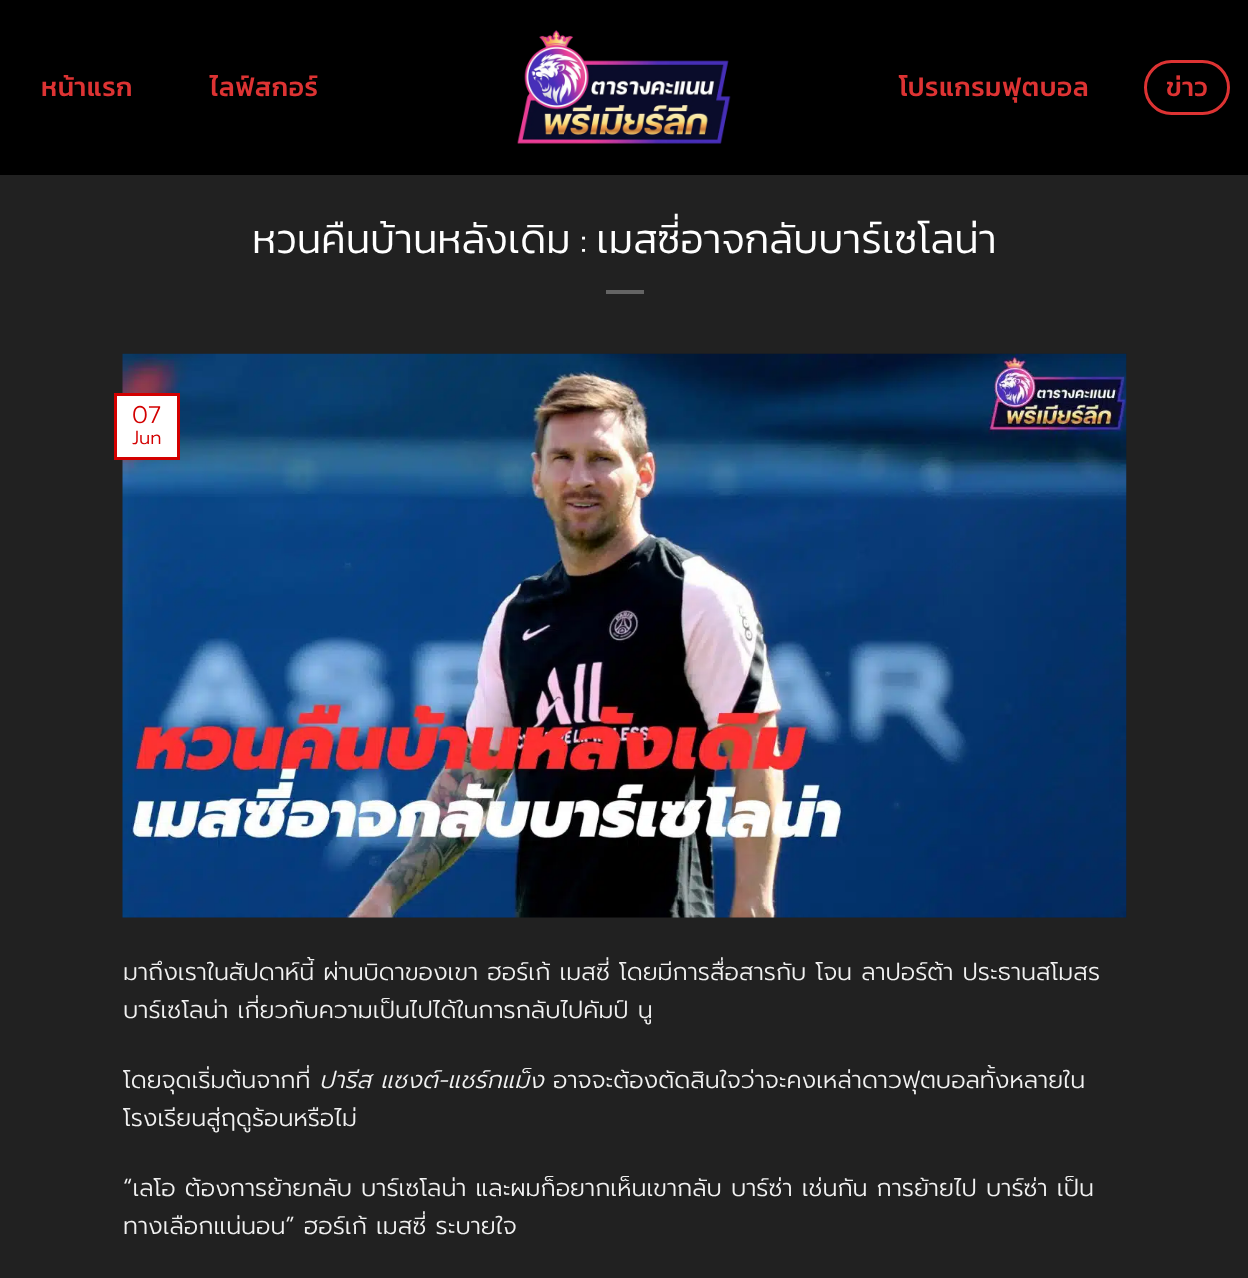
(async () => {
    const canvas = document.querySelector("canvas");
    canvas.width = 1248;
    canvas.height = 1278;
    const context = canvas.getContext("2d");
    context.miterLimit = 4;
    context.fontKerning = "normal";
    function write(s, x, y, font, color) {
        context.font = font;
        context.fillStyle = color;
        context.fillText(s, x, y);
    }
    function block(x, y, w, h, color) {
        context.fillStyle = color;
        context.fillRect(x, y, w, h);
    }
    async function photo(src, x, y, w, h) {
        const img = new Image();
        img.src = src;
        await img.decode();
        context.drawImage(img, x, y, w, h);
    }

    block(0, 0, 1248, 1278, "rgb(33, 33, 33)");
    block(0, 0, 1248, 175, "rgb(0, 0, 0)");
    context.letterSpacing = "0.5px";
    write("หน้าแรก", 41, 96, "500 26.5px Kanit", "rgb(221, 51, 51)");
    write("ไลฟ์สกอร์", 210, 96, "500 26.5px Kanit", "rgb(221, 51, 51)");
    await photo("media/1.png", 517, 30, 214, 114);
    write("โปรแกรมฟุตบอล", 899, 96, "500 26.5px Kanit", "rgb(221, 51, 51)");
    context.beginPath();
    context.roundRect(1145.5, 61.5, 83, 52, 26);
    context.strokeStyle = "rgb(221, 51, 51)";
    context.lineWidth = 3;
    context.stroke();
    write("ข่าว", 1166, 96, "500 26.5px Kanit", "rgb(221, 51, 51)");
    context.letterSpacing = "0px";
    write("หวนคืนบ้านหลังเดิม : เมสซี่อาจกลับบาร์เซโลน่า", 252, 253, "300 40.75px Kanit", "rgb(255, 255, 255)");
    block(606, 290, 38, 4, "rgb(100, 100, 100)");
    await photo("media/2.png", 122, 353, 1005, 565);
    context.fillStyle = "rgb(255, 255, 255)";
    context.beginPath();
    context.rect(115.5, 394.5, 63, 64);
    context.fill();
    context.strokeStyle = "rgb(211, 0, 0)";
    context.stroke();
    write("07", 132, 423, "300 24px Prompt", "rgb(211, 0, 0)");
    write("Jun", 132, 444, "300 19px Prompt", "rgb(211, 0, 0)");
    write("มาถึงเราในสัปดาห์นี้ ผ่านบิดาของเขา ฮอร์เก้ เมสซี่ โดยมีการสื่อสารกับ โจน ลาปอร์ต้า ประธานสโมสร", 123, 980, "300 24px Prompt", "rgb(241, 241, 241)");
    write("บาร์เซโลน่า เกี่ยวกับความเป็นไปได้ในการกลับไปคัมป์ นู", 123, 1018, "300 24px Prompt", "rgb(241, 241, 241)");
    write("โดยจุดเริ่มต้นจากที่", 123, 1088, "300 24px Prompt", "rgb(241, 241, 241)");
    write("ปารีส แซงต์-แชร์กแม็ง", 319, 1088, "italic 300 24px Prompt", "rgb(241, 241, 241)");
    write("อาจจะต้องตัดสินใจว่าจะคงเหล่าดาวฟุตบอลทั้งหลายใน", 553, 1088, "300 24px Prompt", "rgb(241, 241, 241)");
    write("โรงเรียนสู่ฤดูร้อนหรือไม่", 123, 1126, "300 24px Prompt", "rgb(241, 241, 241)");
    write("“เลโอ ต้องการย้ายกลับ บาร์เซโลน่า และผมก็อยากเห็นเขากลับ บาร์ซ่า เช่นกัน การย้ายไป บาร์ซ่า เป็น", 123, 1196, "300 24px Prompt", "rgb(241, 241, 241)");
    write("ทางเลือกแน่นอน” ฮอร์เก้ เมสซี่ ระบายใจ", 123, 1234, "300 24px Prompt", "rgb(241, 241, 241)");
})();
